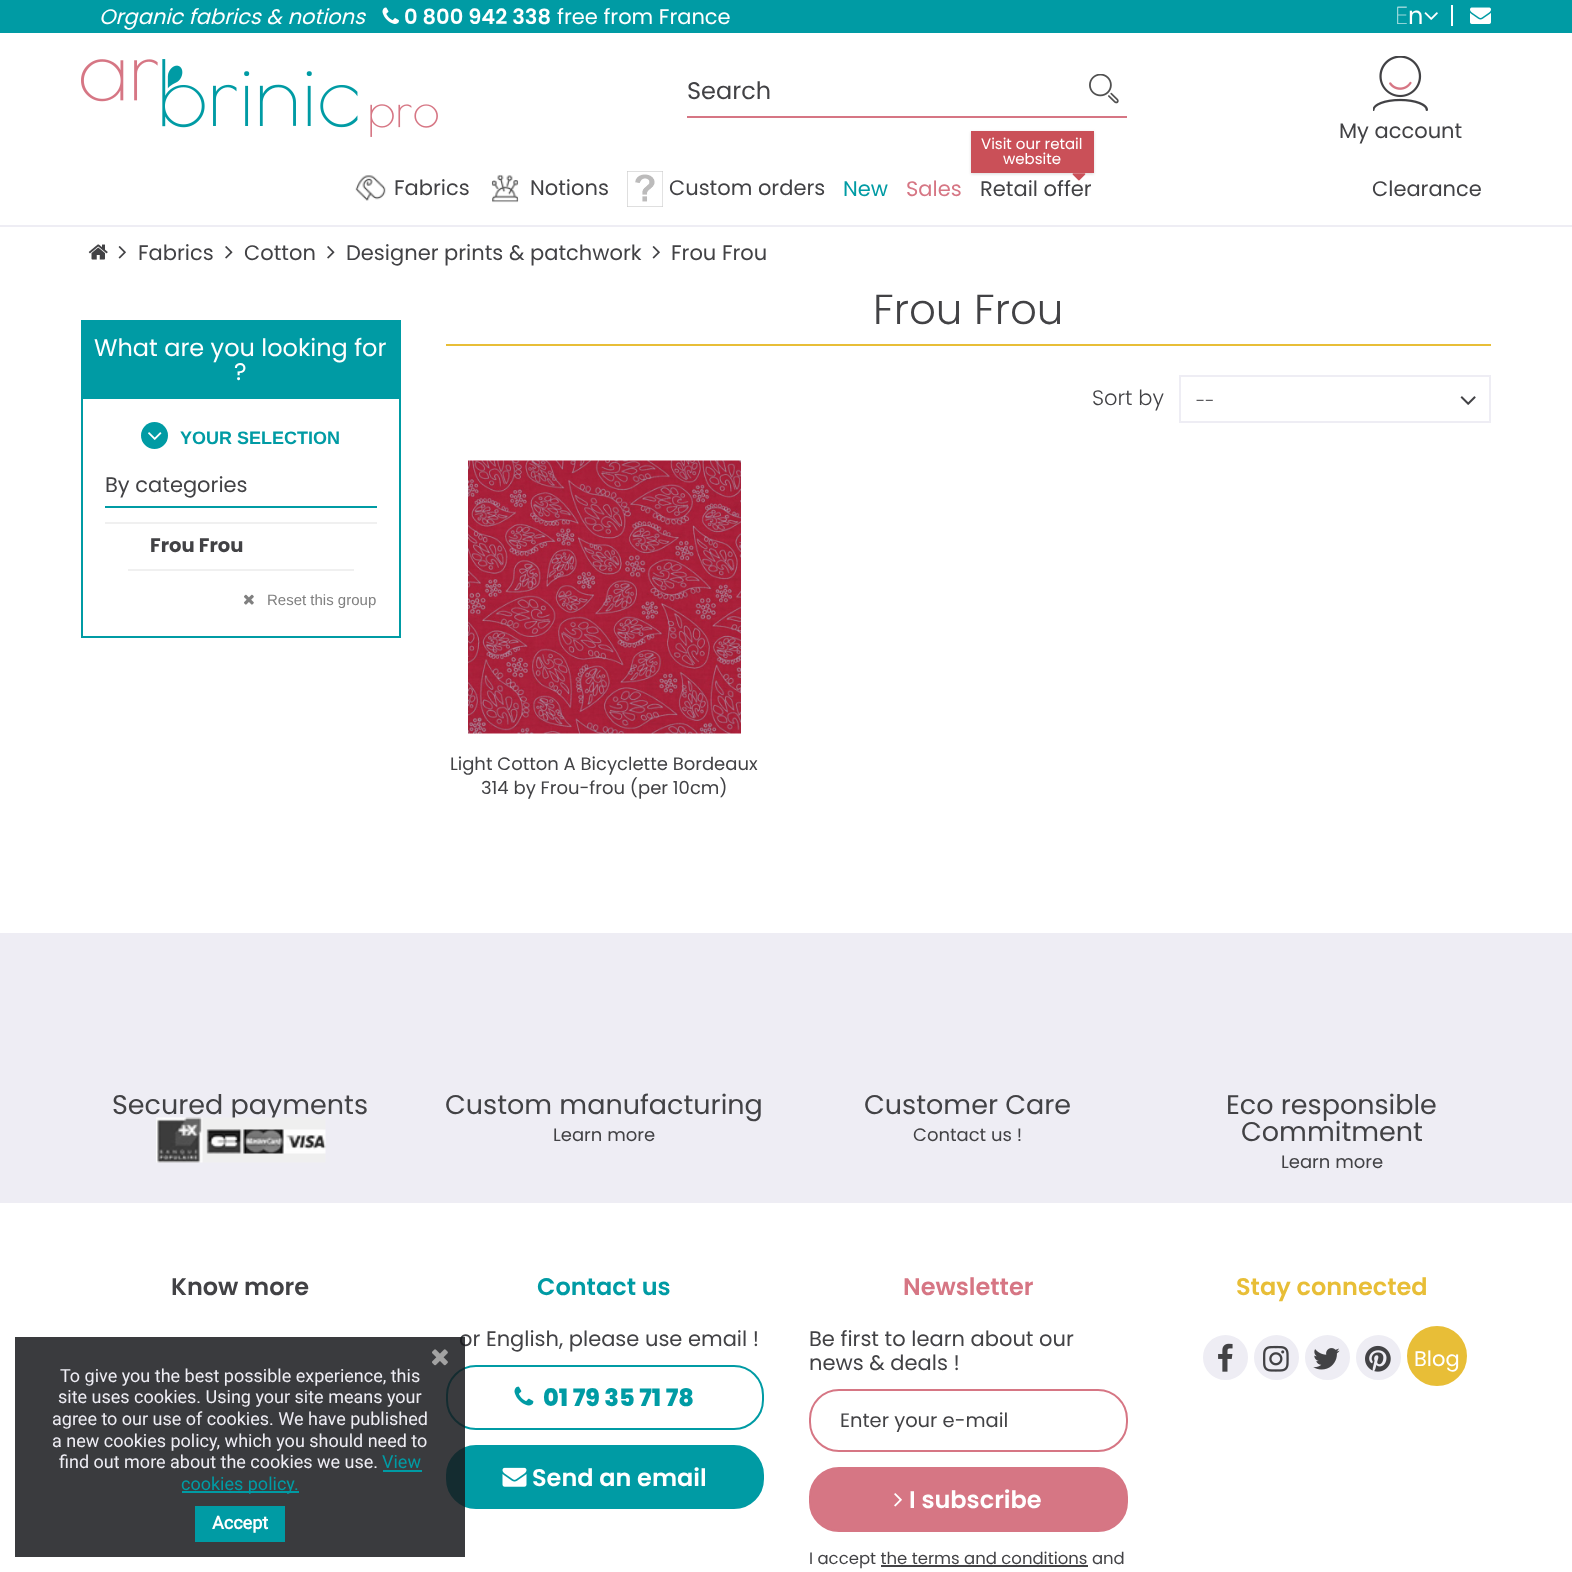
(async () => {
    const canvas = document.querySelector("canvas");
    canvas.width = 1572;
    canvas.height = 1572;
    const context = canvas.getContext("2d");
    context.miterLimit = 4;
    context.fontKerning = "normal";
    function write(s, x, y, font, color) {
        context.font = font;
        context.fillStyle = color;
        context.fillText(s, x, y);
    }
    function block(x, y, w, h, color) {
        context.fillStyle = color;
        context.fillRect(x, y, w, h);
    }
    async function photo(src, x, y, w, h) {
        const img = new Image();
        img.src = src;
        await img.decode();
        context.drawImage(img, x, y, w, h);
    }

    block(0, 0, 1572, 1572, "rgb(255, 255, 255)");
    block(0, 0, 1572, 33, "rgb(0, 155, 164)");
    write("Organic fabrics & notions", 99, 24, "italic 21px Poppins", "rgb(255, 255, 255)");
    await photo("media/1.png", 382, 7, 17, 17);
    write("0 800 942 338", 404, 24, "600 21px Poppins", "rgb(255, 255, 255)");
    write("free from France", 557, 24, "21px Poppins", "rgb(255, 255, 255)");
    write("E", 1395, 24, "100 24px Noto Sans", "rgb(255, 255, 255)");
    write("n", 1408, 24, "24px Poppins", "rgb(255, 255, 255)");
    await photo("media/2.png", 1424, 12, 14, 8);
    block(1451, 5, 2, 21, "rgb(255, 255, 255)");
    await photo("media/3.png", 1470, 7, 21, 17);
    await photo("media/4.png", 81, 59, 357, 78);
    block(687, 116, 440, 2, "rgb(214, 118, 132)");
    write("Search", 687, 99, "24px Poppins", "rgb(66, 66, 69)");
    await photo("media/5.png", 1089, 74, 30, 30);
    await photo("media/6.png", 1373, 56, 55, 55);
    write("My account", 1339, 138, "21px Poppins", "rgb(66, 66, 69)");
    block(0, 225, 1572, 2, "rgb(238, 237, 244)");
    await photo("media/7.png", 355, 175, 31, 26);
    write("Fabrics", 394, 195, "21px Poppins", "rgb(66, 66, 69)");
    await photo("media/8.png", 491, 174, 28, 29);
    write("Notions", 530, 195, "21px Poppins", "rgb(66, 66, 69)");
    await photo("media/9.png", 627, 171, 36, 36);
    write("Custom orders", 669, 195, "21px Poppins", "rgb(66, 66, 69)");
    write("New", 843, 196, "21px Poppins", "rgb(0, 155, 164)");
    write("Sales", 906, 196, "21px Poppins", "rgb(214, 118, 132)");
    context.fillStyle = "rgba(0, 0, 0, 0.15)";
    context.filter = "blur(1.5px)";
    context.beginPath();
    context.rect(971, 132, 123, 42);
    context.fill();
    context.filter = "none";
    block(971, 131, 123, 42, "rgb(202, 80, 88)");
    write("Visit our retail", 981, 149, "15px Poppins", "rgb(255, 255, 255)");
    write("website", 1003, 164, "15px Poppins", "rgb(255, 255, 255)");
    write("Retail offer", 980, 196, "21px Poppins", "rgb(66, 66, 69)");
    await photo("media/10.png", 1072, 173, 14, 8);
    write("Clearance", 1372, 196, "21px Poppins", "rgb(66, 66, 69)");
    await photo("media/11.png", 88, 244, 20, 16);
    await photo("media/12.png", 118, 246, 8, 13);
    write("Fabrics", 138, 260, "21px Poppins", "rgb(66, 66, 69)");
    await photo("media/13.png", 225, 246, 8, 13);
    write("Cotton", 244, 260, "21px Poppins", "rgb(66, 66, 69)");
    await photo("media/13.png", 327, 246, 8, 13);
    write("Designer prints & patchwork", 346, 260, "21px Poppins", "rgb(66, 66, 69)");
    await photo("media/12.png", 652, 246, 8, 13);
    write("Frou Frou", 671, 260, "21px Poppins", "rgb(66, 66, 69)");
    context.strokeStyle = "rgb(0, 155, 164)";
    context.lineWidth = 2;
    context.strokeRect(82, 321, 318, 316);
    block(83, 322, 316, 77, "rgb(0, 155, 164)");
    write("What are you looking for", 94, 356, "24px Poppins", "rgb(255, 255, 255)");
    write("?", 234, 380, "24px Poppins", "rgb(255, 255, 255)");
    context.fillStyle = "rgb(0, 155, 164)";
    context.beginPath();
    context.arc(154.5, 435.5, 13.5, 0, Math.PI * 2);
    context.fill();
    await photo("media/14.png", 148, 432, 14, 8);
    write("YOUR SELECTION", 180, 444, "bold 18px Liberation Sans", "rgb(0, 155, 164)");
    block(105, 506, 272, 2, "rgb(0, 155, 164)");
    write("By categories", 105, 492, "21px Poppins", "rgb(66, 66, 69)");
    block(105, 522, 272, 2, "rgb(240, 240, 240)");
    block(128, 569, 226, 2, "rgb(240, 240, 240)");
    write("Frou Frou", 150, 552, "bold 19.5px Poppins", "rgb(66, 66, 69)");
    await photo("media/15.png", 244, 594, 10, 11);
    write("Reset this group", 267, 605, "15px Liberation Sans", "rgb(128, 128, 128)");
    write("Frou Frou", 873, 324, "300 42px Poppins", "rgb(66, 66, 69)");
    block(446, 344, 1045, 2, "rgb(232, 190, 55)");
    write("Sort by", 1092, 405, "300 21px Poppins", "rgb(66, 66, 69)");
    context.strokeStyle = "rgb(238, 237, 244)";
    context.strokeRect(1180, 376, 310, 46);
    write("--", 1196, 407, "300 18px Poppins", "rgb(66, 66, 69)");
    await photo("media/16.png", 1460, 396, 16, 9);
    await photo("media/17.png", 468, 460, 273, 274);
    write("Light Cotton A Bicyclette Bordeaux", 450, 770, "18px Poppins", "rgb(66, 66, 69)");
    write("314 by Frou-frou (per 10cm)", 481, 794, "18px Poppins", "rgb(66, 66, 69)");
    block(0, 933, 1572, 270, "rgb(238, 237, 244)");
    write("Secured payments", 112, 1114, "27px Poppins", "rgb(66, 66, 69)");
    await photo("media/18.png", 156, 1117, 170, 46);
    write("Custom manufacturing", 445, 1114, "27px Poppins", "rgb(66, 66, 69)");
    write("Learn more", 553, 1141, "18px Poppins", "rgb(66, 66, 69)");
    write("Customer Care", 864, 1114, "27px Poppins", "rgb(66, 66, 69)");
    write("Contact us !", 913, 1141, "18px Poppins", "rgb(66, 66, 69)");
    write("Eco responsible", 1226, 1114, "27px Poppins", "rgb(66, 66, 69)");
    write("Commitment", 1241, 1141, "27px Poppins", "rgb(66, 66, 69)");
    write("Learn more", 1281, 1168, "18px Poppins", "rgb(66, 66, 69)");
    write("Know more", 171, 1295, "600 24px Poppins", "rgb(66, 66, 69)");
    write("Contact us", 537, 1295, "600 24px Poppins", "rgb(0, 155, 164)");
    write("or English, please use email !", 459, 1346, "21px Poppins", "rgb(66, 66, 69)");
    context.beginPath();
    context.roundRect(447, 1366, 316, 63, 29);
    context.strokeStyle = "rgb(0, 155, 164)";
    context.stroke();
    await photo("media/19.png", 514, 1386, 20, 20);
    write("01 79 35 71 78", 543, 1406, "800 24px Poppins", "rgb(0, 155, 164)");
    context.beginPath();
    context.roundRect(447, 1446, 316, 62, 29);
    context.fill();
    context.stroke();
    await photo("media/20.png", 502, 1467, 25, 20);
    write("Send an email", 532, 1486, "600 24px Poppins", "rgb(255, 255, 255)");
    write("Newsletter", 903, 1295, "600 24px Poppins", "rgb(214, 118, 132)");
    write("Be first to learn about our", 809, 1346, "21px Poppins", "rgb(66, 66, 69)");
    write("news & deals !", 809, 1370, "21px Poppins", "rgb(66, 66, 69)");
    context.beginPath();
    context.roundRect(810, 1390, 317, 61, 29);
    context.strokeStyle = "rgb(214, 118, 132)";
    context.stroke();
    write("Enter your e-mail", 840, 1427, "19.5px Poppins", "rgb(66, 66, 69)");
    context.fillStyle = "rgb(214, 118, 132)";
    context.beginPath();
    context.roundRect(810, 1468, 317, 63, 29);
    context.fill();
    context.stroke();
    await photo("media/21.png", 894, 1493, 8, 14);
    write("I subscribe", 909, 1508, "600 24px Poppins", "rgb(255, 255, 255)");
    write("I accept the terms and conditions and", 809, 1564, "16.5px Poppins", "rgb(66, 66, 69)");
    block(881, 1565, 207, 2, "rgb(66, 66, 69)");
    write("Stay connected", 1236, 1295, "600 24px Poppins", "rgb(232, 190, 55)");
    context.fillStyle = "rgb(238, 237, 244)";
    context.beginPath();
    context.arc(1225.5, 1357.5, 21.5, 0, Math.PI * 2);
    context.fill();
    context.strokeStyle = "rgb(238, 237, 244)";
    context.stroke();
    await photo("media/22.png", 1218, 1343, 15, 29);
    context.beginPath();
    context.arc(1276.5, 1357.5, 21.5, 0, Math.PI * 2);
    context.fill();
    context.stroke();
    await photo("media/23.png", 1263, 1345, 26, 27);
    context.beginPath();
    context.arc(1327.5, 1357.5, 21.5, 0, Math.PI * 2);
    context.fill();
    context.stroke();
    await photo("media/24.png", 1313, 1348, 27, 22);
    context.beginPath();
    context.arc(1378.5, 1357.5, 21.5, 0, Math.PI * 2);
    context.fill();
    context.stroke();
    await photo("media/25.png", 1365, 1345, 26, 27);
    context.fillStyle = "rgb(232, 190, 55)";
    context.beginPath();
    context.arc(1437, 1356, 29, 0, Math.PI * 2);
    context.fill();
    context.strokeStyle = "rgb(232, 190, 55)";
    context.stroke();
    write("Blog", 1414, 1366, "21px Poppins", "rgb(255, 255, 255)");
    block(15, 1337, 450, 220, "rgba(23, 25, 28, 0.85)");
    await photo("media/26.png", 432, 1349, 16, 17);
    write("To give you the best possible experience, this", 60, 1382, "18px Roboto", "rgb(238, 237, 244)");
    write("site uses cookies. Using your site means your", 58, 1403, "18px Roboto", "rgb(238, 237, 244)");
    write("agree to our use of cookies. We have published", 52, 1425, "18px Roboto", "rgb(238, 237, 244)");
    write("a new cookies policy, which you should need to", 52, 1447, "18px Roboto", "rgb(238, 237, 244)");
    write("find out more about the cookies we use.", 59, 1468, "18px Roboto", "rgb(238, 237, 244)");
    write("View", 382, 1468, "18px Roboto", "rgb(0, 155, 164)");
    block(383, 1470, 39, 2, "rgb(0, 155, 164)");
    block(182, 1491, 117, 2, "rgb(0, 155, 164)");
    write("cookies policy.", 181, 1490, "18px Roboto", "rgb(0, 155, 164)");
    block(195, 1506, 90, 36, "rgb(0, 155, 164)");
    write("Accept", 212, 1529, "bold 18px Roboto", "rgb(255, 255, 255)");
})();
